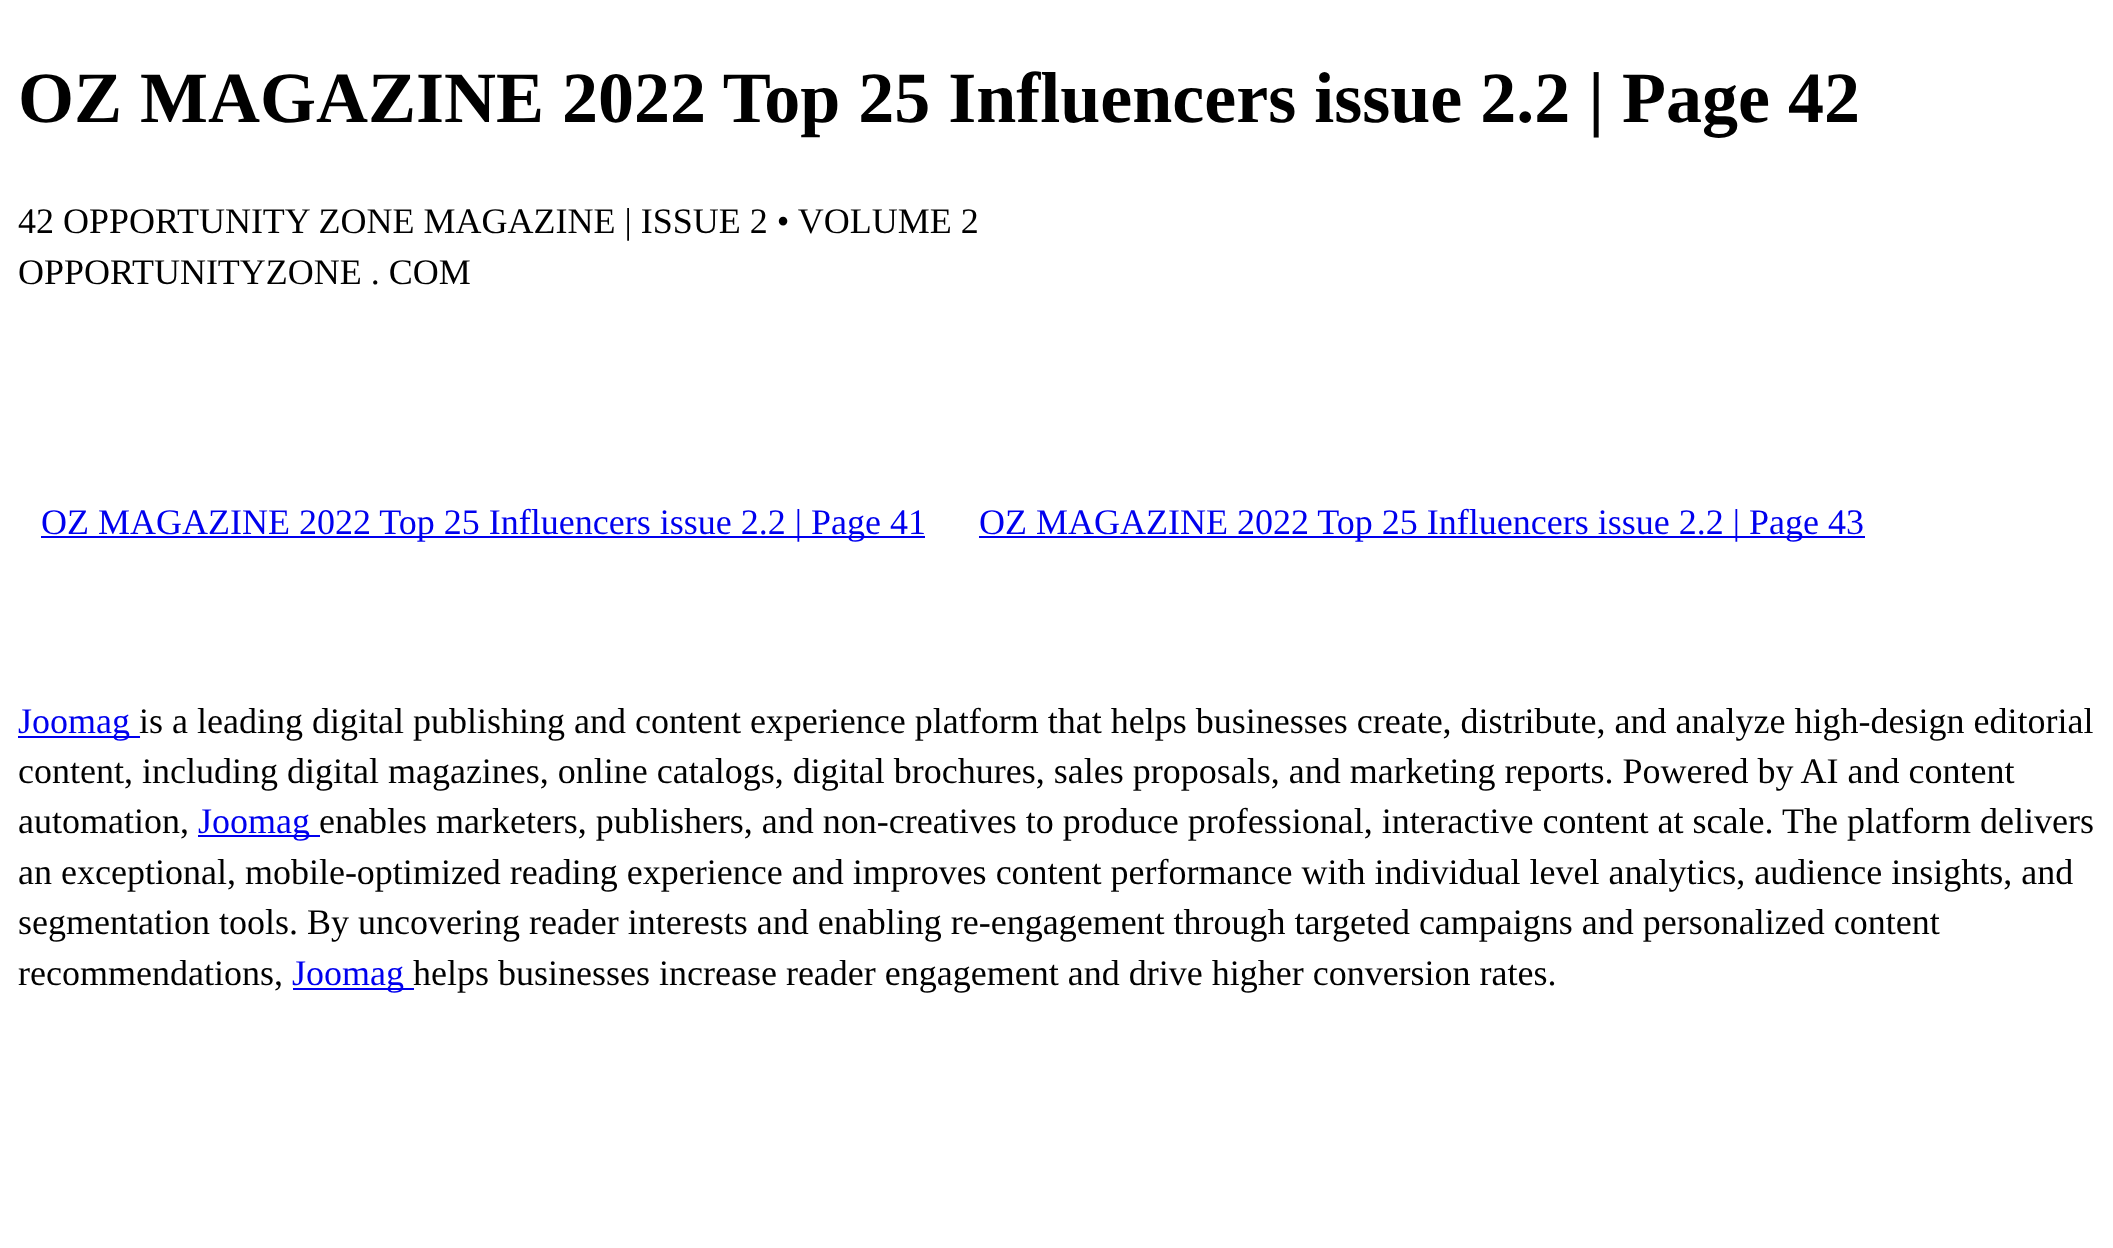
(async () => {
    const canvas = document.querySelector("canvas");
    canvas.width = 2113;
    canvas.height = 1248;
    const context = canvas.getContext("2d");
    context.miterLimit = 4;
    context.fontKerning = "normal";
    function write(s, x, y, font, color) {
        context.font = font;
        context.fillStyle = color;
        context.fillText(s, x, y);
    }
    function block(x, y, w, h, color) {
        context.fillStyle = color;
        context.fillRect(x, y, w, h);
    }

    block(0, 0, 2113, 1248, "rgb(255, 255, 255)");
    write("OZ MAGAZINE 2022 Top 25 Influencers issue 2.2 | Page 42", 18, 122, "bold 72px Liberation Serif", "rgb(0, 0, 0)");
    write("42 OPPORTUNITY ZONE MAGAZINE | ISSUE 2 • VOLUME 2", 18, 233, "36px Liberation Serif", "rgb(0, 0, 0)");
    write("OPPORTUNITYZONE . COM", 18, 284, "36px Liberation Serif", "rgb(0, 0, 0)");
    block(41, 536, 884, 2, "rgb(0, 0, 238)");
    write("OZ MAGAZINE 2022 Top 25 Influencers issue 2.2 | Page 41", 41, 534, "36px Liberation Serif", "rgb(0, 0, 238)");
    block(979, 536, 886, 2, "rgb(0, 0, 238)");
    write("OZ MAGAZINE 2022 Top 25 Influencers issue 2.2 | Page 43", 979, 534, "36px Liberation Serif", "rgb(0, 0, 238)");
    block(18, 736, 122, 2, "rgb(0, 0, 238)");
    write("Joomag", 18, 733, "36px Liberation Serif", "rgb(0, 0, 238)");
    write("is a leading digital publishing and content experience platform that helps businesses create, distribute, and analyze high-design editorial", 139, 733, "36px Liberation Serif", "rgb(0, 0, 0)");
    write("content, including digital magazines, online catalogs, digital brochures, sales proposals, and marketing reports. Powered by AI and content", 18, 783, "36px Liberation Serif", "rgb(0, 0, 0)");
    write("automation,", 18, 833, "36px Liberation Serif", "rgb(0, 0, 0)");
    block(198, 835, 122, 2, "rgb(0, 0, 238)");
    write("Joomag", 198, 833, "36px Liberation Serif", "rgb(0, 0, 238)");
    write("enables marketers, publishers, and non-creatives to produce professional, interactive content at scale.", 319, 833, "36px Liberation Serif", "rgb(0, 0, 0)");
    write("The platform delivers", 1782, 833, "36px Liberation Serif", "rgb(0, 0, 0)");
    write("an exceptional, mobile-optimized reading experience and improves content performance with individual level analytics, audience insights, and", 18, 884, "36px Liberation Serif", "rgb(0, 0, 0)");
    write("segmentation tools. By uncovering reader interests and enabling re-engagement through targeted campaigns and personalized content", 18, 934, "36px Liberation Serif", "rgb(0, 0, 0)");
    write("recommendations,", 18, 985, "36px Liberation Serif", "rgb(0, 0, 0)");
    block(293, 988, 121, 2, "rgb(0, 0, 238)");
    write("Joomag", 292, 985, "36px Liberation Serif", "rgb(0, 0, 238)");
    write("helps businesses increase reader engagement and drive higher conversion rates.", 413, 985, "36px Liberation Serif", "rgb(0, 0, 0)");
})();
